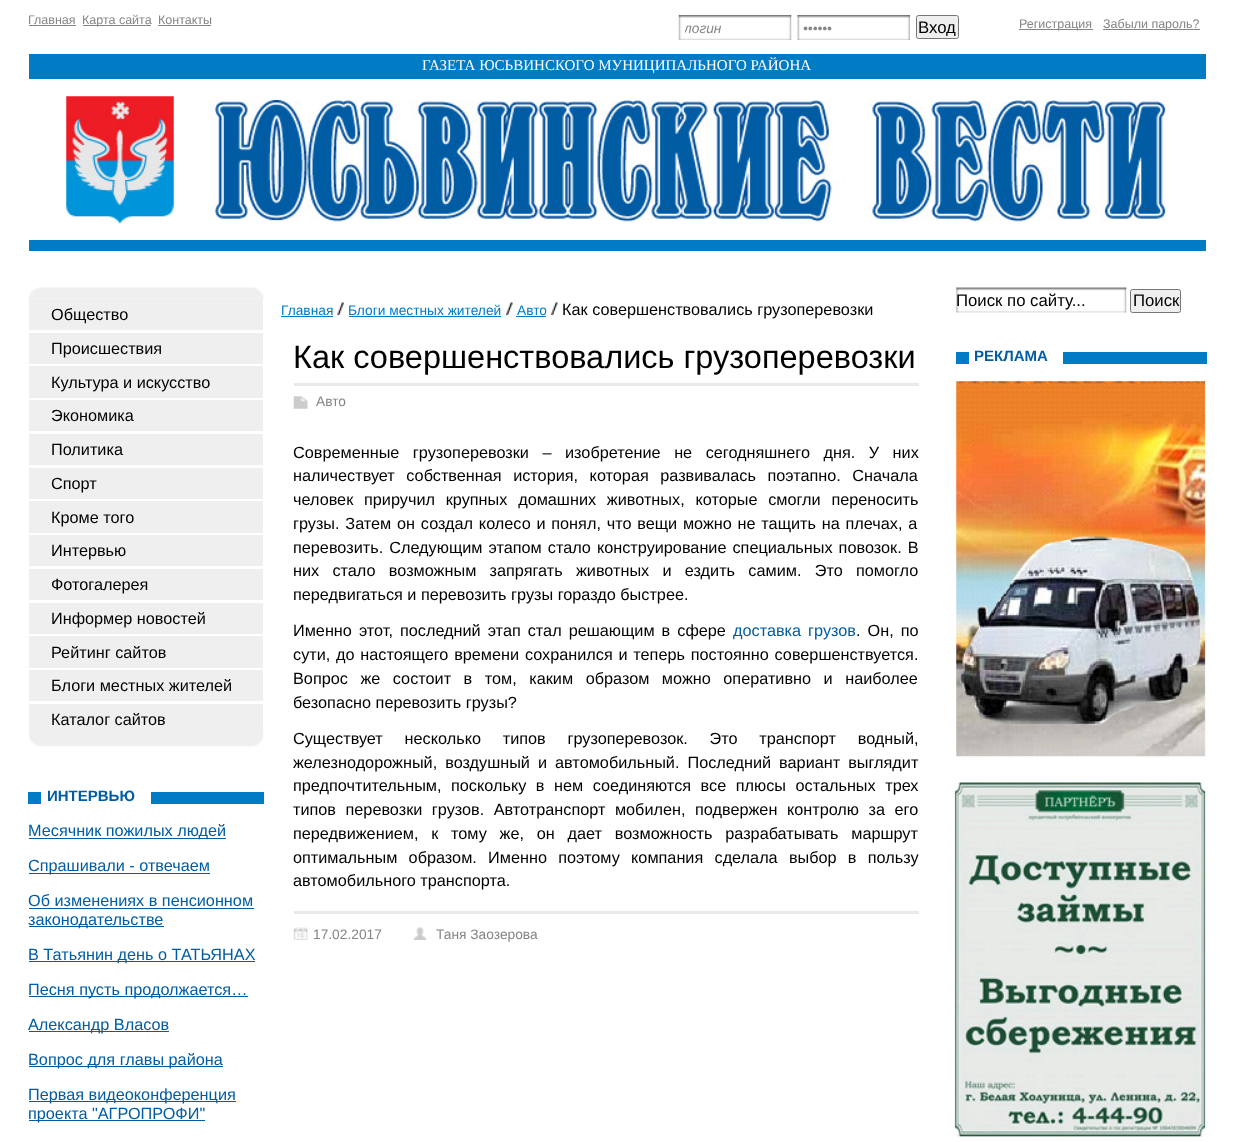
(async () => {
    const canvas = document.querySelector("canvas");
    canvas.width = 1233;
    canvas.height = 1142;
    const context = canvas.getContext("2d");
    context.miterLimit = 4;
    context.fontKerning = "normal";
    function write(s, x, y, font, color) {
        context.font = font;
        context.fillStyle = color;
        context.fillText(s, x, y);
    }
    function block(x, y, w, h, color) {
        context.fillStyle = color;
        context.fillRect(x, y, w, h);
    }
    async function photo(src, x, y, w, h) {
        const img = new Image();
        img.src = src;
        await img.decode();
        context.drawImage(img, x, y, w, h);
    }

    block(0, 0, 1233, 1142, "rgb(255, 255, 255)");
    write("Главная", 28, 24, "12.5px Liberation Sans", "rgb(133, 133, 133)");
    block(29, 25, 47, 1, "rgb(133, 133, 133)");
    block(83, 25, 68, 1, "rgb(133, 133, 133)");
    write("Карта сайта", 82, 24, "12.5px Liberation Sans", "rgb(133, 133, 133)");
    write("Контакты", 158, 24, "12.5px Liberation Sans", "rgb(133, 133, 133)");
    block(158, 25, 53, 1, "rgb(133, 133, 133)");
    await photo("media/1.png", 678, 15, 114, 25);
    context.save();
    context.beginPath();
    context.rect(685, 15, 106, 25);
    context.clip();
    write("логин", 684, 33, "italic 13.75px Liberation Sans", "rgb(133, 133, 133)");
    context.restore();
    await photo("media/2.png", 797, 15, 113, 25);
    write("••••••", 803, 33, "italic 13.75px Liberation Sans", "rgb(133, 133, 133)");
    context.fillStyle = "rgb(239, 239, 239)";
    context.beginPath();
    context.roundRect(916.5, 15.5, 42, 23, 2);
    context.fill();
    context.strokeStyle = "rgb(118, 118, 118)";
    context.stroke();
    context.save();
    context.beginPath();
    context.rect(919, 18, 37, 18);
    context.clip();
    write("Вход", 918, 33, "16.75px Liberation Sans", "rgb(0, 0, 0)");
    context.restore();
    block(1019, 29, 74, 1, "rgb(133, 133, 133)");
    write("Регистрация", 1019, 28, "12.5px Liberation Sans", "rgb(133, 133, 133)");
    block(1103, 29, 97, 1, "rgb(133, 133, 133)");
    write("Забыли пароль?", 1103, 28, "12.5px Liberation Sans", "rgb(133, 133, 133)");
    block(29, 54, 1177, 25, "rgb(0, 124, 197)");
    write("ГАЗЕТА ЮСЬВИНСКОГО МУНИЦИПАЛЬНОГО РАЙОНА", 422, 70, "15px Liberation Serif", "rgb(255, 255, 255)");
    await photo("media/3.png", 210, 100, 959, 122);
    block(29, 240, 1177, 11, "rgb(0, 124, 197)");
    await photo("media/4.png", 66, 96, 108, 128);
    await photo("media/5.png", 29, 287, 235, 12);
    await photo("media/6.png", 29, 735, 235, 12);
    block(29, 299, 234, 31, "rgb(239, 239, 239)");
    write("Общество", 51, 320, "16.25px Liberation Sans", "rgb(0, 0, 0)");
    block(29, 333, 234, 31, "rgb(239, 239, 239)");
    write("Происшествия", 51, 354, "16.25px Liberation Sans", "rgb(0, 0, 0)");
    block(29, 366, 234, 32, "rgb(239, 239, 239)");
    write("Культура и искусство", 51, 388, "16.25px Liberation Sans", "rgb(0, 0, 0)");
    block(29, 400, 234, 31, "rgb(239, 239, 239)");
    write("Экономика", 51, 421, "16.25px Liberation Sans", "rgb(0, 0, 0)");
    block(29, 434, 234, 31, "rgb(239, 239, 239)");
    write("Политика", 51, 455, "16.25px Liberation Sans", "rgb(0, 0, 0)");
    block(29, 468, 234, 31, "rgb(239, 239, 239)");
    write("Спорт", 51, 489, "16.25px Liberation Sans", "rgb(0, 0, 0)");
    block(29, 501, 234, 32, "rgb(239, 239, 239)");
    write("Кроме того", 51, 523, "16.25px Liberation Sans", "rgb(0, 0, 0)");
    block(29, 535, 234, 31, "rgb(239, 239, 239)");
    write("Интервью", 51, 556, "16.25px Liberation Sans", "rgb(0, 0, 0)");
    block(29, 569, 234, 31, "rgb(239, 239, 239)");
    write("Фотогалерея", 51, 590, "16.25px Liberation Sans", "rgb(0, 0, 0)");
    block(29, 603, 234, 31, "rgb(239, 239, 239)");
    write("Информер новостей", 51, 624, "16.25px Liberation Sans", "rgb(0, 0, 0)");
    block(29, 636, 234, 32, "rgb(239, 239, 239)");
    write("Рейтинг сайтов", 51, 658, "16.25px Liberation Sans", "rgb(0, 0, 0)");
    block(29, 670, 234, 31, "rgb(239, 239, 239)");
    write("Блоги местных жителей", 51, 691, "16.25px Liberation Sans", "rgb(0, 0, 0)");
    block(29, 704, 234, 31, "rgb(239, 239, 239)");
    write("Каталог сайтов", 51, 725, "16.25px Liberation Sans", "rgb(0, 0, 0)");
    block(28, 792, 236, 12, "rgb(0, 124, 197)");
    block(41, 792, 110, 12, "rgb(255, 255, 255)");
    write("ИНТЕРВЬЮ", 47, 801, "bold 15px Liberation Sans", "rgb(0, 92, 164)");
    block(29, 838, 197, 1, "rgb(0, 92, 164)");
    write("Месячник пожилых людей", 28, 836, "16.25px Liberation Sans", "rgb(0, 92, 164)");
    block(29, 873, 181, 1, "rgb(0, 92, 164)");
    write("Спрашивали - отвечаем", 28, 871, "16.25px Liberation Sans", "rgb(0, 92, 164)");
    write("Об изменениях в пенсионном", 28, 906, "16.25px Liberation Sans", "rgb(0, 92, 164)");
    block(29, 908, 225, 1, "rgb(0, 92, 164)");
    block(29, 926, 135, 1, "rgb(0, 92, 164)");
    write("законодательстве", 28, 925, "16.25px Liberation Sans", "rgb(0, 92, 164)");
    block(29, 961, 226, 1, "rgb(0, 92, 164)");
    write("В Татьянин день о ТАТЬЯНАХ", 28, 960, "16.25px Liberation Sans", "rgb(0, 92, 164)");
    block(29, 996, 219, 1, "rgb(0, 92, 164)");
    write("Песня пусть продолжается…", 28, 995, "16.25px Liberation Sans", "rgb(0, 92, 164)");
    block(29, 1031, 140, 1, "rgb(0, 92, 164)");
    write("Александр Власов", 28, 1030, "16.25px Liberation Sans", "rgb(0, 92, 164)");
    block(29, 1066, 194, 1, "rgb(0, 92, 164)");
    write("Вопрос для главы района", 28, 1065, "16.25px Liberation Sans", "rgb(0, 92, 164)");
    block(29, 1101, 207, 1, "rgb(0, 92, 164)");
    write("Первая видеоконференция", 28, 1100, "16.25px Liberation Sans", "rgb(0, 92, 164)");
    block(29, 1120, 176, 1, "rgb(0, 92, 164)");
    write("проекта \"АГРОПРОФИ\"", 28, 1119, "16.25px Liberation Sans", "rgb(0, 92, 164)");
    write("Главная", 281, 315, "13.75px Liberation Sans", "rgb(0, 124, 197)");
    block(281, 316, 52, 1, "rgb(0, 124, 197)");
    await photo("media/7.png", 337, 302, 7, 13);
    write("Блоги местных жителей", 348, 315, "13.75px Liberation Sans", "rgb(0, 124, 197)");
    block(349, 316, 152, 1, "rgb(0, 124, 197)");
    await photo("media/8.png", 506, 302, 7, 13);
    write("Авто", 517, 315, "13.75px Liberation Sans", "rgb(0, 124, 197)");
    block(516, 316, 30, 1, "rgb(0, 124, 197)");
    await photo("media/8.png", 551, 302, 7, 13);
    write("Как совершенствовались грузоперевозки", 562, 315, "16.25px Liberation Sans", "rgb(0, 0, 0)");
    write("Как совершенствовались грузоперевозки", 293, 368, "32.5px Liberation Sans", "rgb(0, 0, 0)");
    block(294, 383, 625, 3, "rgb(233, 233, 233)");
    await photo("media/9.png", 293, 396, 15, 13);
    write("Авто", 316, 406, "13.75px Liberation Sans", "rgb(133, 133, 133)");
    context.wordSpacing = "9px";
    write("Современные грузоперевозки – изобретение не сегодняшнего дня. У них", 293, 458, "16.25px Liberation Sans", "rgb(0, 0, 0)");
    context.wordSpacing = "7px";
    write("наличествует собственная история, которая развивалась поэтапно. Сначала", 293, 481, "16.25px Liberation Sans", "rgb(0, 0, 0)");
    context.wordSpacing = "6.25px";
    write("человек приручил крупных домашних животных, которые смогли переносить", 293, 505, "16.25px Liberation Sans", "rgb(0, 0, 0)");
    context.wordSpacing = "1.25px";
    write("грузы. Затем он создал колесо и понял, что вещи можно не тащить на плечах, а", 293, 529, "16.25px Liberation Sans", "rgb(0, 0, 0)");
    context.wordSpacing = "1.5px";
    write("перевозить. Следующим этапом стало конструирование специальных повозок. В", 293, 553, "16.25px Liberation Sans", "rgb(0, 0, 0)");
    context.wordSpacing = "8.75px";
    write("них стало возможным запрягать животных и ездить самим. Это помогло", 293, 576, "16.25px Liberation Sans", "rgb(0, 0, 0)");
    context.wordSpacing = "0px";
    write("передвигаться и перевозить грузы гораздо быстрее.", 293, 600, "16.25px Liberation Sans", "rgb(0, 0, 0)");
    context.wordSpacing = "2.5px";
    write("Именно этот, последний этап стал решающим в сфере", 293, 636, "16.25px Liberation Sans", "rgb(0, 0, 0)");
    write("доставка грузов", 733, 636, "16.25px Liberation Sans", "rgb(0, 92, 164)");
    write(". Он, по", 856, 636, "16.25px Liberation Sans", "rgb(0, 0, 0)");
    context.wordSpacing = "1.25px";
    write("сути, до настоящего времени сохранился и теперь постоянно совершенствуется.", 293, 660, "16.25px Liberation Sans", "rgb(0, 0, 0)");
    context.wordSpacing = "8px";
    write("Вопрос же состоит в том, каким образом можно оперативно и наиболее", 293, 684, "16.25px Liberation Sans", "rgb(0, 0, 0)");
    context.wordSpacing = "0px";
    write("безопасно перевозить грузы?", 293, 708, "16.25px Liberation Sans", "rgb(0, 0, 0)");
    context.wordSpacing = "17.25px";
    write("Существует несколько типов грузоперевозок. Это транспорт водный,", 293, 744, "16.25px Liberation Sans", "rgb(0, 0, 0)");
    context.wordSpacing = "3.5px";
    write("железнодорожный, воздушный и автомобильный. Последний вариант выглядит", 293, 768, "16.25px Liberation Sans", "rgb(0, 0, 0)");
    context.wordSpacing = "5px";
    write("предпочтительным, поскольку в нем соединяются все плюсы остальных трех", 293, 791, "16.25px Liberation Sans", "rgb(0, 0, 0)");
    write("типов перевозки грузов. Автотранспорт мобилен, подвержен контролю за его", 293, 815, "16.25px Liberation Sans", "rgb(0, 0, 0)");
    context.wordSpacing = "8.25px";
    write("передвижением, к тому же, он дает возможность разрабатывать маршрут", 293, 839, "16.25px Liberation Sans", "rgb(0, 0, 0)");
    context.wordSpacing = "6.75px";
    write("оптимальным образом. Именно поэтому компания сделала выбор в пользу", 293, 863, "16.25px Liberation Sans", "rgb(0, 0, 0)");
    context.wordSpacing = "0px";
    write("автомобильного транспорта.", 293, 886, "16.25px Liberation Sans", "rgb(0, 0, 0)");
    block(294, 911, 625, 3, "rgb(233, 233, 233)");
    await photo("media/10.png", 293, 927, 15, 13);
    write("17.02.2017", 313, 939, "13.75px Liberation Sans", "rgb(133, 133, 133)");
    await photo("media/11.png", 413, 927, 14, 13);
    write("Таня Заозерова", 436, 939, "13.75px Liberation Sans", "rgb(133, 133, 133)");
    await photo("media/12.png", 956, 287, 171, 26);
    write("Поиск по сайту...", 956, 306, "16.75px Liberation Sans", "rgb(0, 0, 0)");
    context.fillStyle = "rgb(239, 239, 239)";
    context.beginPath();
    context.roundRect(1130.5, 289.5, 50, 23, 2);
    context.fill();
    context.stroke();
    write("Поиск", 1133, 306, "16.75px Liberation Sans", "rgb(0, 0, 0)");
    block(956, 352, 251, 12, "rgb(0, 124, 197)");
    block(969, 352, 94, 12, "rgb(255, 255, 255)");
    write("РЕКЛАМА", 974, 361, "bold 15px Liberation Sans", "rgb(0, 92, 164)");
    await photo("media/13.png", 956, 381, 250, 376);
    await photo("media/14.png", 954, 781, 252, 357);
})();
